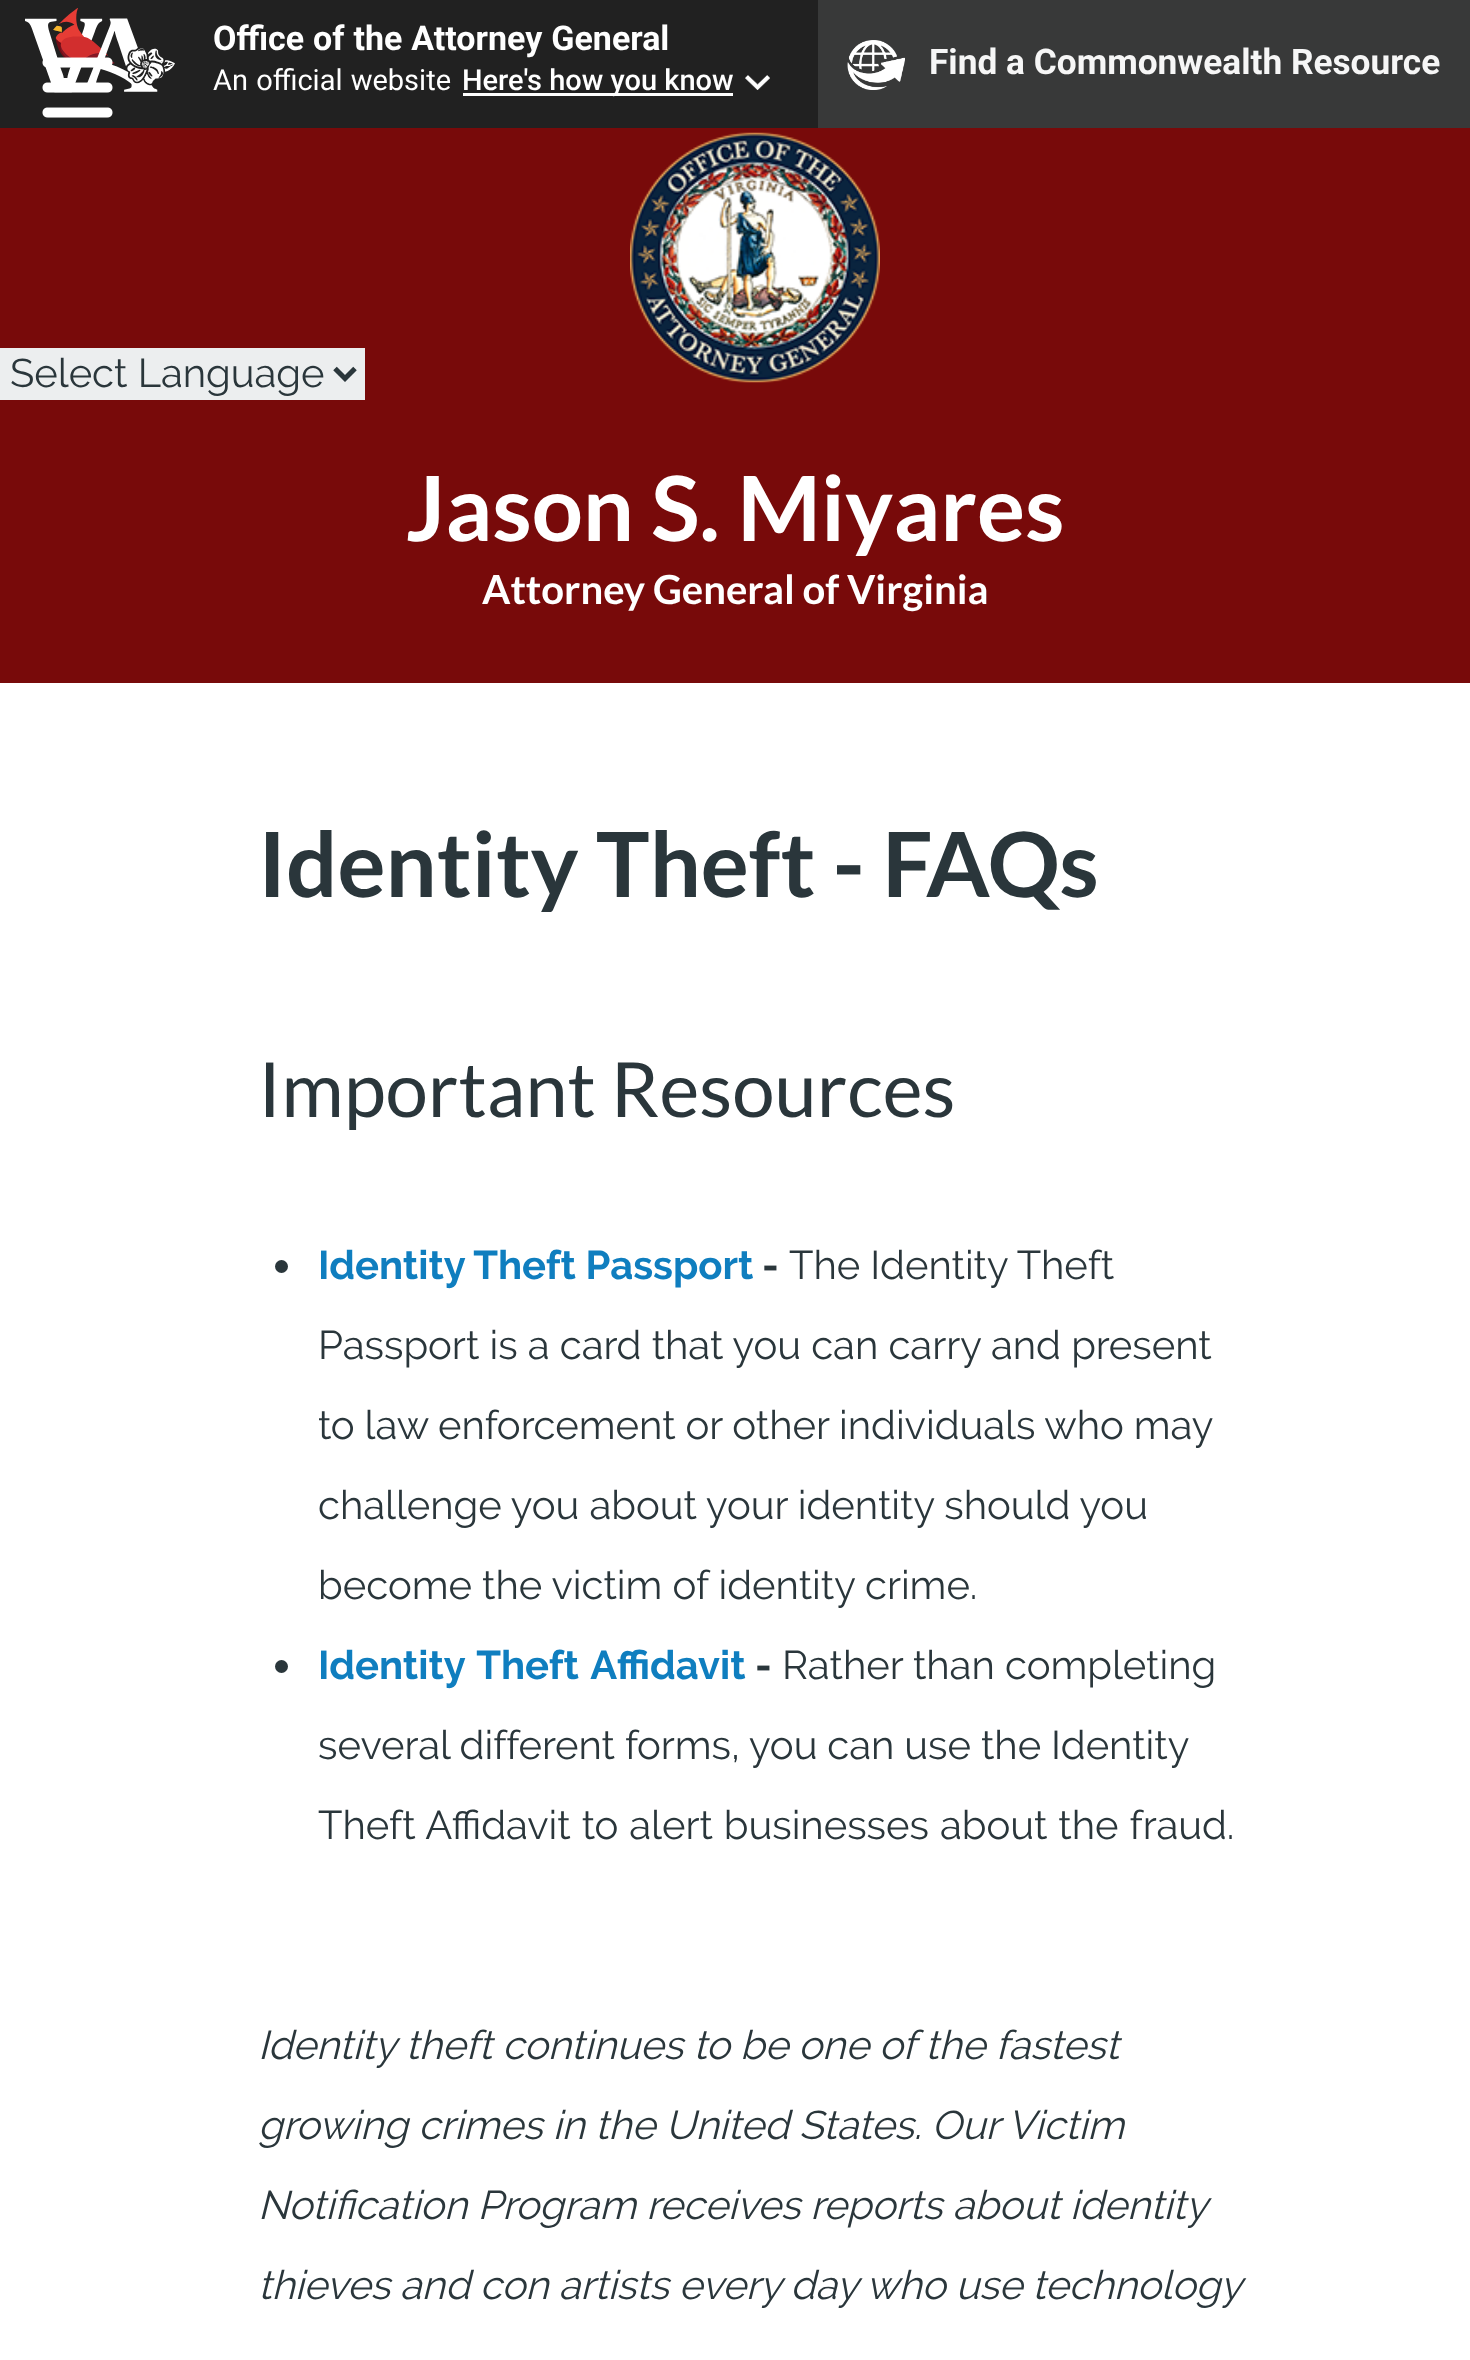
(async () => {
    const canvas = document.querySelector("canvas");
    canvas.width = 1470;
    canvas.height = 2360;
    const context = canvas.getContext("2d");
    context.miterLimit = 4;
    context.fontKerning = "normal";
    function write(s, x, y, font, color) {
        context.font = font;
        context.fillStyle = color;
        context.fillText(s, x, y);
    }
    function block(x, y, w, h, color) {
        context.fillStyle = color;
        context.fillRect(x, y, w, h);
    }
    async function photo(src, x, y, w, h) {
        const img = new Image();
        img.src = src;
        await img.decode();
        context.drawImage(img, x, y, w, h);
    }

    block(0, 0, 1470, 2360, "rgb(120, 10, 10)");
    block(0, 0, 818, 128, "rgb(33, 33, 33)");
    await photo("media/1.png", 25, 8, 150, 85);
    context.wordSpacing = "0.5px";
    write("Office of the Attorney General", 213, 50, "bold 34px Roboto", "rgb(255, 255, 255)");
    context.wordSpacing = "1px";
    write("An official website", 213, 90, "29px Roboto", "rgb(255, 255, 255)");
    block(463, 93, 270, 3, "rgb(255, 255, 255)");
    context.wordSpacing = "0px";
    write("Here's how you know", 462, 90, "500 29px Roboto", "rgb(255, 255, 255)");
    await photo("media/2.png", 745, 75, 25, 15);
    block(818, 0, 652, 128, "rgb(56, 57, 57)");
    await photo("media/3.png", 847, 40, 58, 50);
    write("Find a Commonwealth Resource", 929, 74, "bold 35.25px Roboto", "rgb(246, 246, 246)");
    block(0, 348, 365, 52, "rgb(236, 238, 239)");
    context.beginPath();
    context.moveTo(335, 368.5);
    context.lineTo(345, 378.5);
    context.lineTo(355, 368.5);
    context.strokeStyle = "rgb(42, 54, 59)";
    context.lineWidth = 5;
    context.stroke();
    write("Select Language", 10, 387, "40px Raleway", "rgb(42, 54, 59)");
    await photo("media/4.png", 630, 132, 250, 251);
    write("Jason S. Miyares", 406, 541, "bold 90px Lato", "rgb(255, 255, 255)");
    write("Attorney General of Virginia", 482, 604, "bold 40px Lato", "rgb(255, 255, 255)");
    await photo("media/5.png", 42, 57, 71, 61);
    block(0, 683, 1470, 1677, "rgb(255, 255, 255)");
    write("Identity Theft - FAQs", 258, 897, "bold 90px Lato", "rgb(42, 54, 59)");
    write("Important Resources", 258, 1117, "76px Lato", "rgb(42, 54, 59)");
    context.beginPath();
    context.arc(281.5, 1266.5, 6.5, 0, Math.PI * 2);
    context.fill();
    write("Identity Theft Passport", 318, 1279, "bold 40px Raleway", "rgb(15, 126, 191)");
    write("-", 762, 1279, "bold 40px Raleway", "rgb(42, 54, 59)");
    write("The Identity Theft", 789, 1279, "40px Raleway", "rgb(42, 54, 59)");
    write("Passport is a card that you can carry and present", 318, 1359, "40px Raleway", "rgb(42, 54, 59)");
    context.wordSpacing = "-0.25px";
    write("to law enforcement or other individuals who may", 318, 1439, "40px Raleway", "rgb(42, 54, 59)");
    context.wordSpacing = "0px";
    write("challenge you about your identity should you", 318, 1519, "40px Raleway", "rgb(42, 54, 59)");
    write("become the victim of identity crime.", 318, 1599, "40px Raleway", "rgb(42, 54, 59)");
    context.beginPath();
    context.arc(281.5, 1666.5, 6.5, 0, Math.PI * 2);
    context.fill();
    context.wordSpacing = "3px";
    write("Identity Theft Affidavit", 318, 1679, "bold 40px Raleway", "rgb(15, 126, 191)");
    context.wordSpacing = "0px";
    write("-", 755, 1679, "bold 40px Raleway", "rgb(42, 54, 59)");
    write("Rather than completing", 782, 1679, "40px Raleway", "rgb(42, 54, 59)");
    context.wordSpacing = "-0.25px";
    write("several different forms, you can use the Identity", 318, 1759, "40px Raleway", "rgb(42, 54, 59)");
    context.wordSpacing = "0.75px";
    write("Theft Affidavit to alert businesses about the fraud.", 318, 1839, "40px Raleway", "rgb(42, 54, 59)");
    context.wordSpacing = "0px";
    write("Identity theft continues to be one of the fastest", 258, 2059, "italic 40px Raleway", "rgb(42, 54, 59)");
    write("growing crimes in the United States. Our Victim", 258, 2139, "italic 40px Raleway", "rgb(42, 54, 59)");
    write("Notification Program receives reports about identity", 258, 2219, "italic 40px Raleway", "rgb(42, 54, 59)");
    context.wordSpacing = "-0.25px";
    write("thieves and con artists every day who use technology", 258, 2299, "italic 40px Raleway", "rgb(42, 54, 59)");
})();
